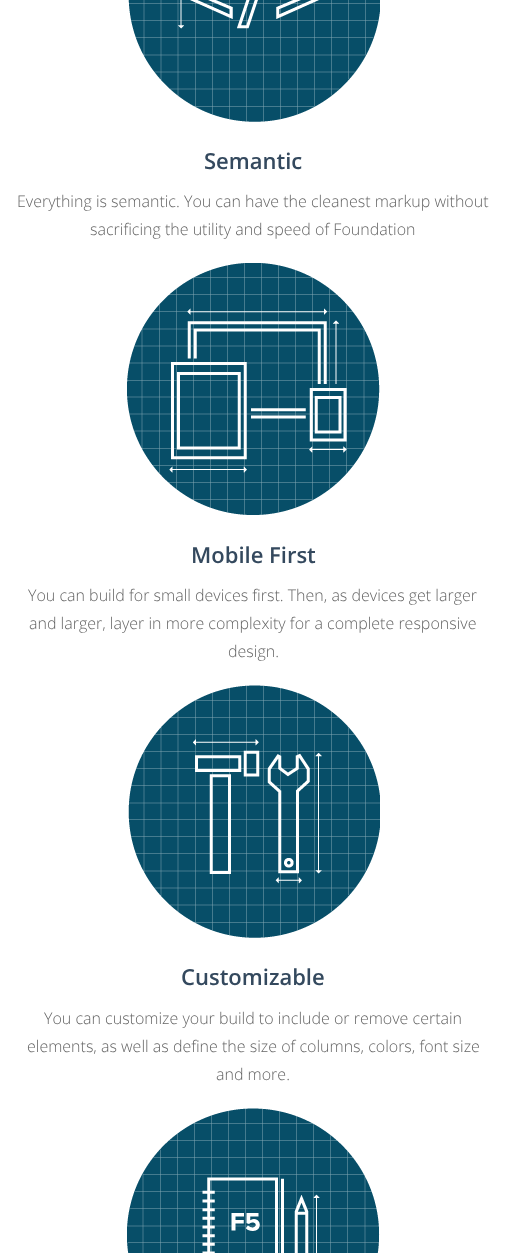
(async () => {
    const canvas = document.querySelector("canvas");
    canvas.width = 506;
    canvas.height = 1253;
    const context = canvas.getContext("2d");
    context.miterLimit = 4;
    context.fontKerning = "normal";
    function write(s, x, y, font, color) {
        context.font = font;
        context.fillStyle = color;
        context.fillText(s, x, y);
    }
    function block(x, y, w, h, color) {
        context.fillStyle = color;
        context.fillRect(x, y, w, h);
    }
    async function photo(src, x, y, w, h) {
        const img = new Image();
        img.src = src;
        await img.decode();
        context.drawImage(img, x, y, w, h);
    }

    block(0, 0, 506, 1253, "rgb(255, 255, 255)");
    await photo("media/1.png", 128, 0, 252, 122);
    write("Semantic", 204, 169, "600 22px Open Sans", "rgb(52, 73, 94)");
    write("Everything is semantic. You can have the cleanest markup without", 17, 207, "300 16px Open Sans", "rgb(102, 102, 102)");
    write("sacrificing the utility and speed of Foundation", 90, 235, "300 16px Open Sans", "rgb(102, 102, 102)");
    await photo("media/2.png", 127, 263, 253, 252);
    write("Mobile First", 191, 563, "600 22px Open Sans", "rgb(52, 73, 94)");
    write("You can build for small devices first. Then, as devices get larger", 28, 601, "300 16px Open Sans", "rgb(102, 102, 102)");
    write("and larger, layer in more complexity for a complete responsive", 29, 629, "300 16px Open Sans", "rgb(102, 102, 102)");
    write("design.", 228, 657, "300 16px Open Sans", "rgb(102, 102, 102)");
    await photo("media/3.png", 128, 685, 252, 253);
    write("Customizable", 181, 985, "600 22px Open Sans", "rgb(52, 73, 94)");
    write("You can customize your build to include or remove certain", 44, 1024, "300 16px Open Sans", "rgb(102, 102, 102)");
    write("elements, as well as define the size of columns, colors, font size", 27, 1052, "300 16px Open Sans", "rgb(102, 102, 102)");
    write("and more.", 216, 1080, "300 16px Open Sans", "rgb(102, 102, 102)");
    await photo("media/4.png", 127, 1108, 253, 145);
})();
